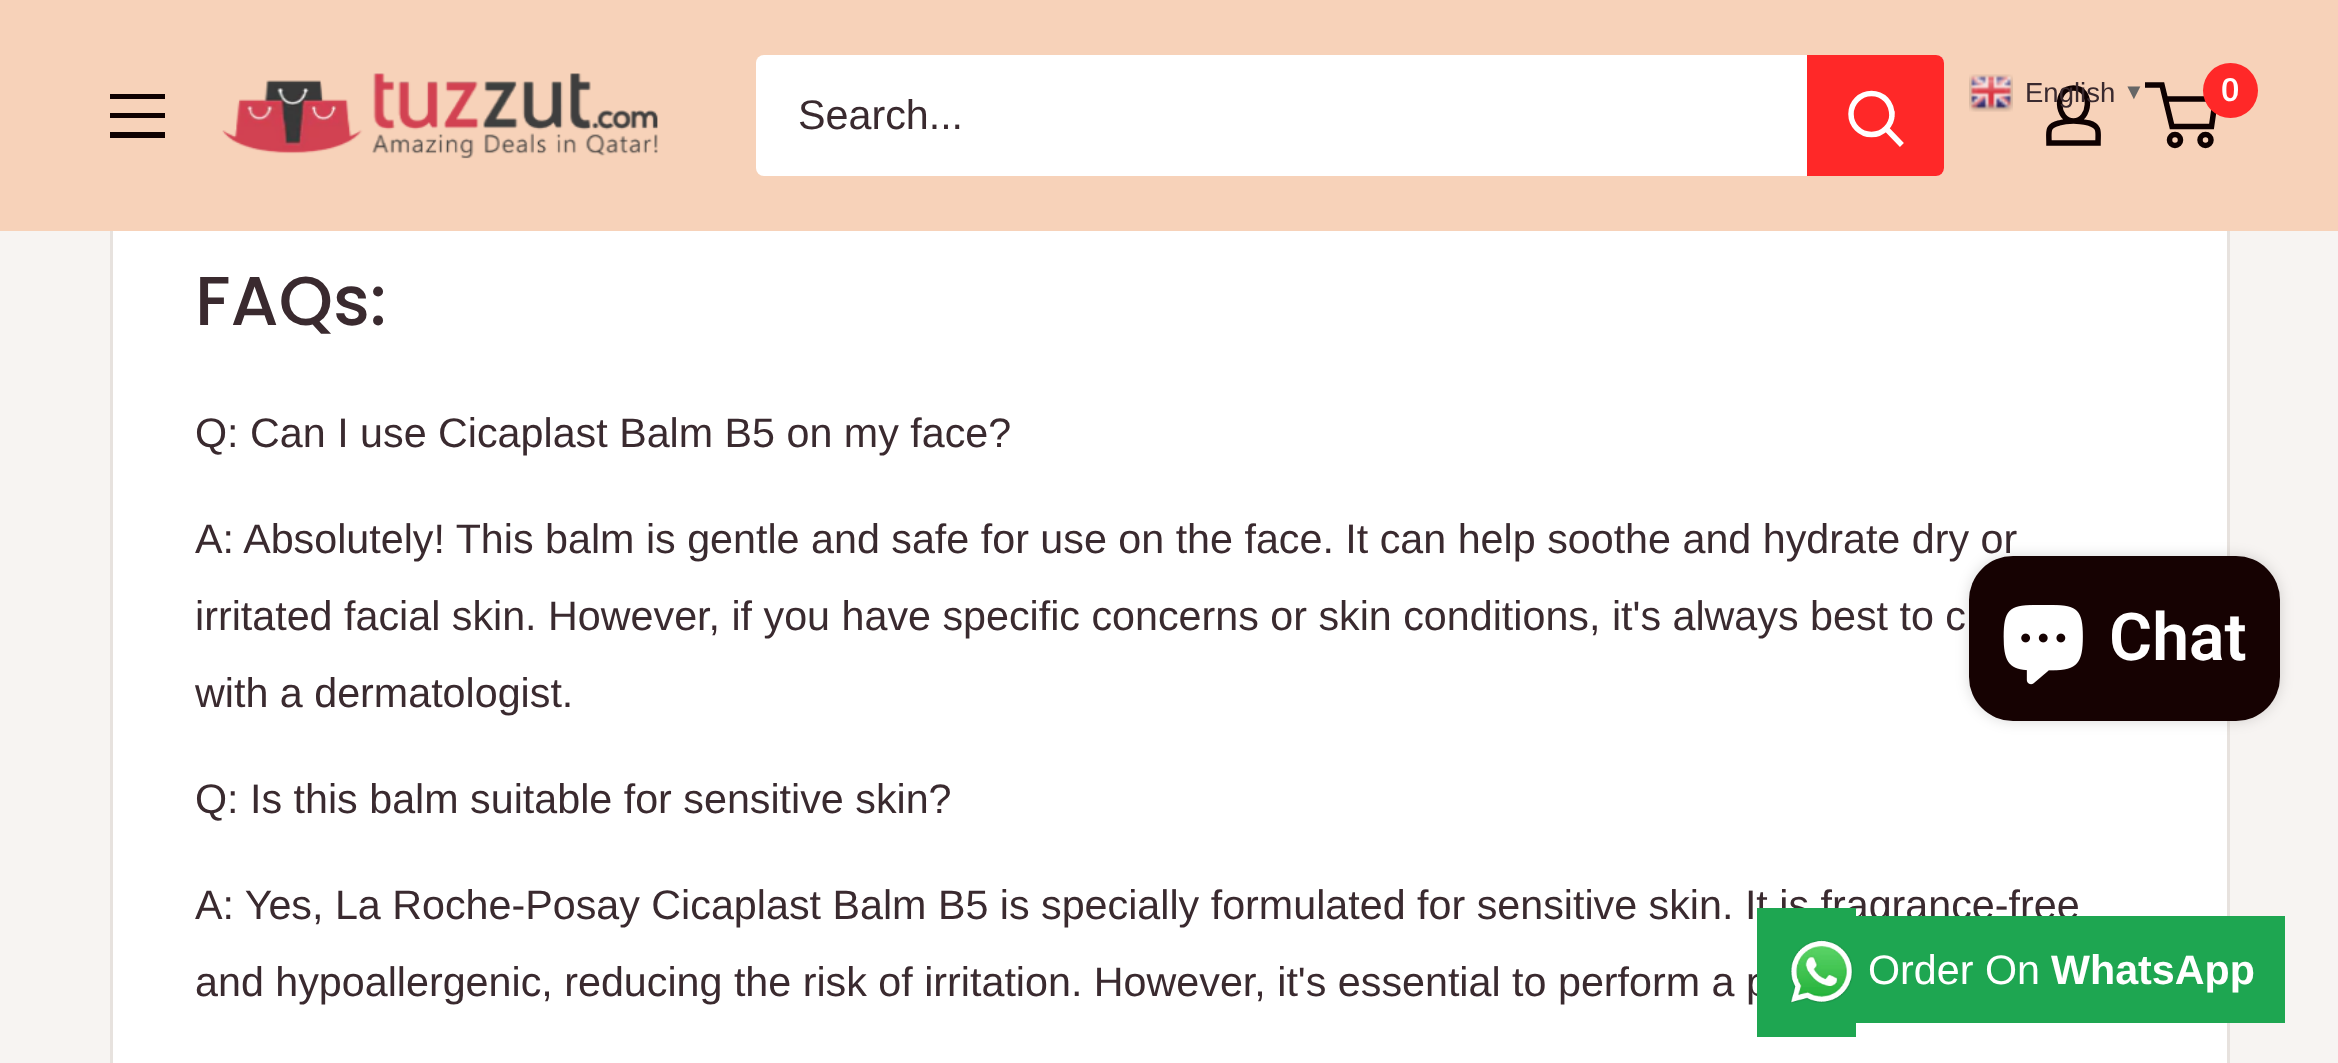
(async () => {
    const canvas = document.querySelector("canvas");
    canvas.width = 2338;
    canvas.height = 1063;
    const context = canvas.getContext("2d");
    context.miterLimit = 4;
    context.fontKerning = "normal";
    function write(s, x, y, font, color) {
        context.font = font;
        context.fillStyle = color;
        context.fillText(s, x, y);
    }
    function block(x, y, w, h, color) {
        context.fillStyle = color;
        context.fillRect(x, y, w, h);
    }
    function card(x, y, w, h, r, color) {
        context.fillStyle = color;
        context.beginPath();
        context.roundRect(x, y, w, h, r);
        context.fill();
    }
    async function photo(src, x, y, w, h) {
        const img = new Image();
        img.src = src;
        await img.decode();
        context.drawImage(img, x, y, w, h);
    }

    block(0, 0, 2338, 1063, "rgb(247, 244, 242)");
    block(113, 231, 2114, 832, "rgb(255, 255, 255)");
    context.strokeStyle = "rgb(231, 226, 222)";
    context.lineWidth = 3;
    context.strokeRect(111.5, -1.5, 2117, 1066);
    block(0, 0, 2338, 231, "rgb(247, 210, 185)");
    await photo("media/1.png", 222, 73, 436, 86);
    context.beginPath();
    context.moveTo(2073.5, 121);
    context.bezierCurveTo(2078.5, 121, 2084, 122, 2089, 123);
    context.bezierCurveTo(2100.5, 126.5, 2098, 132.5, 2098, 143);
    context.lineTo(2049, 143);
    context.bezierCurveTo(2049, 132, 2046.5, 126, 2059, 123);
    context.bezierCurveTo(2063.5, 121.5, 2068.5, 121, 2073.5, 121);
    context.closePath();
    context.moveTo(2073.5, 121);
    context.bezierCurveTo(2056.5, 121, 2053.5, 88, 2073.5, 88);
    context.bezierCurveTo(2093.5, 88, 2090.5, 121, 2073.5, 121);
    context.closePath();
    context.strokeStyle = "rgb(14, 1, 1)";
    context.lineWidth = 5.5;
    context.stroke();
    context.beginPath();
    context.arc(2175, 140, 5.5, 0, Math.PI * 2);
    context.stroke();
    context.beginPath();
    context.arc(2205.5, 140, 5.5, 0, Math.PI * 2);
    context.stroke();
    context.beginPath();
    context.moveTo(2165, 99);
    context.lineTo(2215.5, 99);
    context.lineTo(2211.5, 126.5);
    context.lineTo(2172, 126.5);
    context.lineTo(2162, 85);
    context.lineTo(2145, 85);
    context.stroke();
    context.fillStyle = "rgb(255, 40, 40)";
    context.beginPath();
    context.arc(2230.5, 90.5, 27.5, 0, Math.PI * 2);
    context.fill();
    write("0", 2221, 101, "600 33px Arimo", "rgb(255, 255, 255)");
    context.fillStyle = "rgb(14, 1, 1)";
    context.beginPath();
    context.moveTo(110, 132);
    context.lineTo(165, 132);
    context.lineTo(165, 138);
    context.lineTo(110, 138);
    context.closePath();
    context.moveTo(110, 94);
    context.lineTo(165, 94);
    context.lineTo(165, 99);
    context.lineTo(110, 99);
    context.closePath();
    context.moveTo(110, 113);
    context.lineTo(165, 113);
    context.lineTo(165, 118);
    context.lineTo(110, 118);
    context.closePath();
    context.fill("evenodd");
    card(756, 55, 1188, 121, 8, "rgb(255, 255, 255)");
    write("Search...", 798, 129, "41.25px Arimo", "rgb(58, 42, 47)");
    context.fillStyle = "rgb(255, 40, 40)";
    context.beginPath();
    context.roundRect(1807, 55, 137, 121, [0, 8, 8, 0]);
    context.fill();
    context.beginPath();
    context.moveTo(1900, 143);
    context.lineTo(1886.5, 129);
    context.strokeStyle = "rgb(255, 255, 255)";
    context.lineCap = "square";
    context.stroke();
    context.beginPath();
    context.arc(1871.5, 114, 20.5, 0, Math.PI * 2);
    context.stroke();
    await photo("media/2.png", 1969, 74, 44, 38);
    write("English", 2025, 102, "27.5px Arimo", "rgb(58, 42, 47)");
    write("▼", 2123, 99, "bold 22px Liberation Sans", "rgb(102, 102, 102)");
    write("FAQs:", 195, 325, "500 69px Poppins", "rgb(58, 42, 47)");
    write("Q: Can I use Cicaplast Balm B5 on my face?", 195, 447, "41.25px Arimo", "rgb(58, 42, 47)");
    write("A: Absolutely! This balm is gentle and safe for use on the face. It can help soothe and hydrate dry or", 195, 553, "41.25px Arimo", "rgb(58, 42, 47)");
    write("irritated facial skin. However, if you have specific concerns or skin conditions, it's always best to c", 195, 630, "41.25px Arimo", "rgb(58, 42, 47)");
    write("with a dermatologist.", 195, 707, "41.25px Arimo", "rgb(58, 42, 47)");
    write("Q: Is this balm suitable for sensitive skin?", 195, 813, "41.25px Arimo", "rgb(58, 42, 47)");
    write("A: Yes, La Roche-Posay Cicaplast Balm B5 is specially formulated for sensitive skin. It is fragrance-free", 195, 919, "41.25px Arimo", "rgb(58, 42, 47)");
    write("and hypoallergenic, reducing the risk of irritation. However, it's essential to perform a p", 195, 996, "41.25px Arimo", "rgb(58, 42, 47)");
    context.fillStyle = "rgba(0, 0, 0, 0.15)";
    context.filter = "blur(7px)";
    context.beginPath();
    context.roundRect(1969, 556, 311, 165, 44);
    context.fill();
    context.filter = "none";
    card(1969, 556, 311, 165, 44, "rgb(22, 2, 2)");
    await photo("media/3.png", 2003, 605, 80, 80);
    write("Chat", 2109, 660, "600 66px Roboto", "rgb(255, 255, 255)");
    block(1757, 908, 99, 129, "rgb(30, 166, 81)");
    await photo("media/4.png", 1790, 940, 63, 63);
    block(1856, 916, 429, 107, "rgb(30, 166, 81)");
    write("Order On", 1868, 984, "41.25px Arimo", "rgb(255, 255, 255)");
    write("WhatsApp", 2051, 984, "bold 41.25px Arimo", "rgb(255, 255, 255)");
})();
